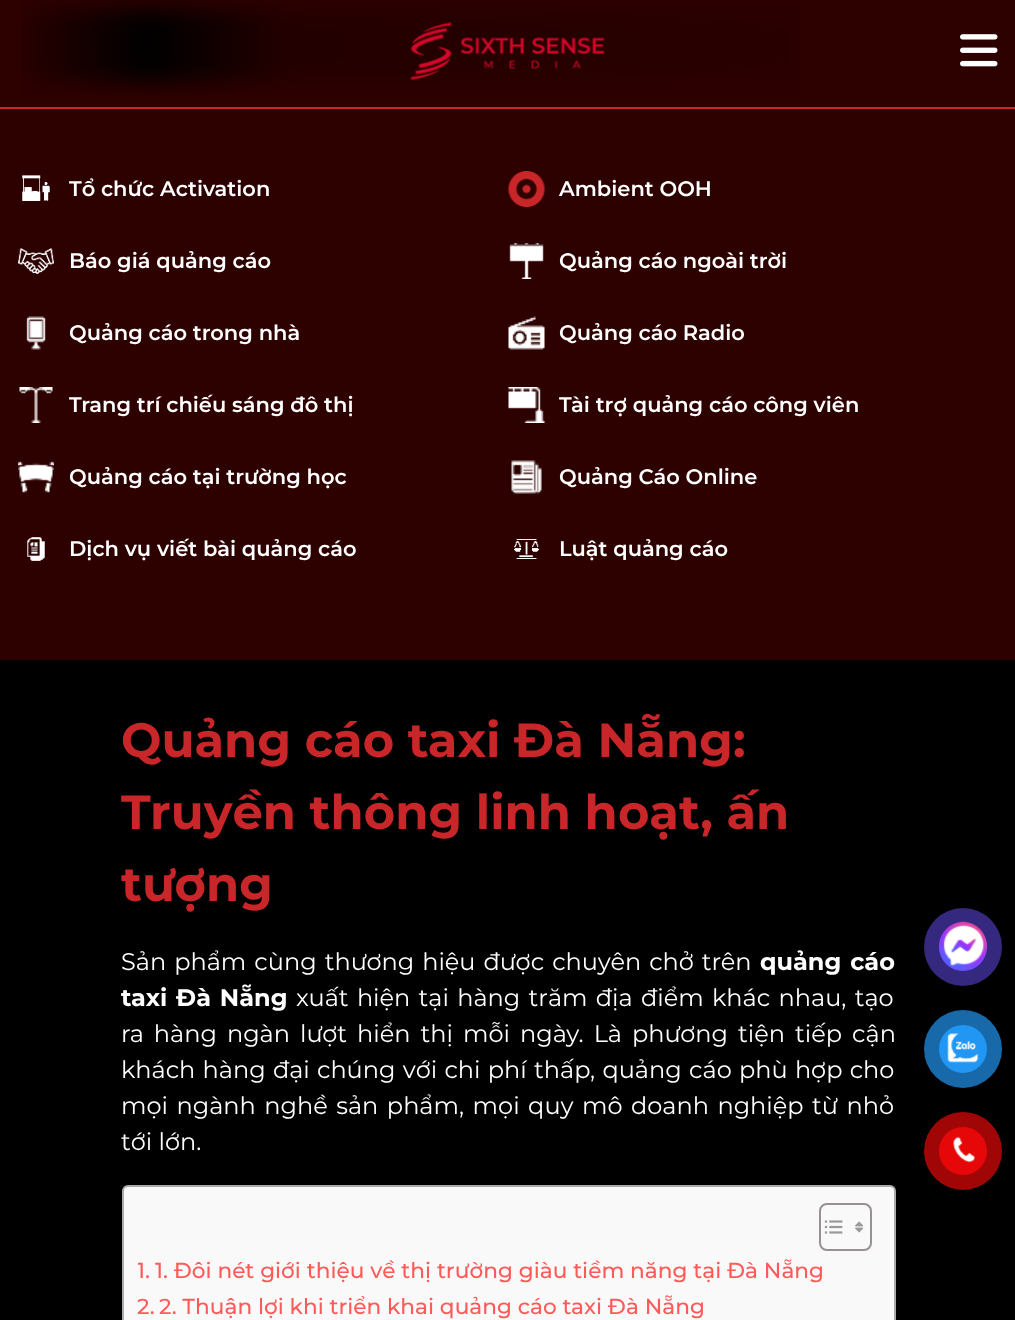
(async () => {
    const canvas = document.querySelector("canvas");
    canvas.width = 1015;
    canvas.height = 1320;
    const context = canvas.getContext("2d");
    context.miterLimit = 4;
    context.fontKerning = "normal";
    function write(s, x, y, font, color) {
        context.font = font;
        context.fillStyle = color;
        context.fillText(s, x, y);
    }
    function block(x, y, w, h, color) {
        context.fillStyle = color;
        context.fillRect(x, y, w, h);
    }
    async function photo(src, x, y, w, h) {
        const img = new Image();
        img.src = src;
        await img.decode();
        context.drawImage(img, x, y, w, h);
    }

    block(0, 0, 1015, 1320, "rgb(46, 1, 1)");
    block(0, 107, 1015, 2, "rgb(200, 38, 41)");
    await photo("media/1.png", 21, 0, 778, 96);
    await photo("media/2.png", 410, 22, 196, 58);
    await photo("media/3.png", 960, 34, 38, 33);
    await photo("media/4.png", 22, 175, 28, 26);
    write("Tổ chức Activation", 69, 196, "600 21px Montserrat", "rgb(255, 255, 255)");
    await photo("media/5.png", 508, 171, 37, 36);
    write("Ambient OOH", 559, 196, "600 21px Montserrat", "rgb(255, 255, 255)");
    await photo("media/6.png", 18, 248, 36, 26);
    write("Báo giá quảng cáo", 69, 268, "600 21px Montserrat", "rgb(255, 255, 255)");
    await photo("media/7.png", 509, 243, 35, 36);
    write("Quảng cáo ngoài trời", 559, 268, "600 21px Montserrat", "rgb(255, 255, 255)");
    await photo("media/8.png", 26, 316, 20, 34);
    write("Quảng cáo trong nhà", 69, 340, "600 21px Montserrat", "rgb(255, 255, 255)");
    await photo("media/9.png", 508, 316, 37, 34);
    write("Quảng cáo Radio", 559, 340, "600 21px Montserrat", "rgb(255, 255, 255)");
    await photo("media/10.png", 19, 387, 34, 36);
    write("Trang trí chiếu sáng đô thị", 69, 412, "600 21px Montserrat", "rgb(255, 255, 255)");
    await photo("media/11.png", 508, 387, 37, 36);
    write("Tài trợ quảng cáo công viên", 559, 412, "600 21px Montserrat", "rgb(255, 255, 255)");
    await photo("media/12.png", 18, 461, 36, 32);
    write("Quảng cáo tại trường học", 69, 484, "600 21px Montserrat", "rgb(255, 255, 255)");
    await photo("media/13.png", 511, 460, 31, 34);
    write("Quảng Cáo Online", 559, 484, "600 21px Montserrat", "rgb(255, 255, 255)");
    await photo("media/14.png", 27, 537, 18, 24);
    write("Dịch vụ viết bài quảng cáo", 69, 556, "600 21px Montserrat", "rgb(255, 255, 255)");
    await photo("media/15.png", 514, 539, 26, 20);
    write("Luật quảng cáo", 559, 556, "600 21px Montserrat", "rgb(255, 255, 255)");
    block(0, 660, 1015, 660, "rgb(0, 0, 0)");
    write("Quảng cáo taxi Đà Nẵng:", 121, 757, "bold 48px Montserrat", "rgb(200, 38, 41)");
    write("Truyền thông linh hoạt, ấn", 121, 829, "bold 48px Montserrat", "rgb(200, 38, 41)");
    write("tượng", 121, 901, "bold 48px Montserrat", "rgb(200, 38, 41)");
    context.wordSpacing = "1.75px";
    write("Sản phẩm cùng thương hiệu được chuyên chở trên", 121, 970, "24px Montserrat", "rgb(255, 255, 255)");
    context.wordSpacing = "2px";
    write("quảng cáo", 760, 970, "bold 24px Montserrat", "rgb(255, 255, 255)");
    write("taxi Đà Nẵng", 121, 1006, "bold 24px Montserrat", "rgb(255, 255, 255)");
    write("xuất hiện tại hàng trăm địa điểm khác nhau, tạo", 296, 1006, "24px Montserrat", "rgb(255, 255, 255)");
    context.wordSpacing = "3.75px";
    write("ra hàng ngàn lượt hiển thị mỗi ngày. Là phương tiện tiếp cận", 121, 1042, "24px Montserrat", "rgb(255, 255, 255)");
    context.wordSpacing = "1px";
    write("khách hàng đại chúng với chi phí thấp, quảng cáo phù hợp cho", 121, 1078, "24px Montserrat", "rgb(255, 255, 255)");
    context.wordSpacing = "2.25px";
    write("mọi ngành nghề sản phẩm, mọi quy mô doanh nghiệp từ nhỏ", 121, 1114, "24px Montserrat", "rgb(255, 255, 255)");
    context.wordSpacing = "0px";
    write("tới lớn.", 121, 1150, "24px Montserrat", "rgb(255, 255, 255)");
    context.fillStyle = "rgb(249, 249, 249)";
    context.beginPath();
    context.roundRect(123, 1186, 772, 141, 5);
    context.fill();
    context.strokeStyle = "rgb(170, 170, 170)";
    context.lineWidth = 2;
    context.stroke();
    context.beginPath();
    context.roundRect(820, 1204, 51, 46, 7);
    context.strokeStyle = "rgb(153, 145, 145)";
    context.stroke();
    await photo("media/16.png", 824, 1220, 19, 14);
    await photo("media/17.png", 855, 1221, 9, 12);
    context.save();
    context.beginPath();
    context.rect(138, 1253, 726, 36);
    context.clip();
    write("1", 137, 1278, "500 21.65px Montserrat", "rgb(255, 90, 90)");
    context.restore();
    write(".", 145, 1278, "500 21.65px Montserrat", "rgb(255, 90, 90)");
    write("1. Đôi nét giới thiệu về thị trường giàu tiềm năng tại Đà Nẵng", 155, 1278, "500 21.65px Montserrat", "rgb(255, 90, 90)");
    write("2.", 137, 1314, "500 21.65px Montserrat", "rgb(255, 90, 90)");
    write("2. Thuận lợi khi triển khai quảng cáo taxi Đà Nẵng", 159, 1314, "500 21.65px Montserrat", "rgb(255, 90, 90)");
    context.fillStyle = "rgb(53, 40, 127)";
    context.beginPath();
    context.arc(963, 947, 39, 0, Math.PI * 2);
    context.fill();
    context.fillStyle = "rgb(106, 79, 254)";
    context.beginPath();
    context.arc(963, 947, 24, 0, Math.PI * 2);
    context.fill();
    await photo("media/18.png", 939, 921, 48, 49);
    context.fillStyle = "rgb(23, 105, 170)";
    context.beginPath();
    context.arc(963, 1049, 39, 0, Math.PI * 2);
    context.fill();
    context.fillStyle = "rgb(33, 150, 243)";
    context.beginPath();
    context.arc(963, 1049, 24, 0, Math.PI * 2);
    context.fill();
    await photo("media/19.png", 947, 1033, 32, 30);
    context.fillStyle = "rgb(161, 6, 6)";
    context.beginPath();
    context.arc(963, 1151, 39, 0, Math.PI * 2);
    context.fill();
    context.fillStyle = "rgb(230, 8, 8)";
    context.beginPath();
    context.arc(963, 1151, 24, 0, Math.PI * 2);
    context.fill();
    await photo("media/20.png", 953, 1136, 22, 27);
})();
